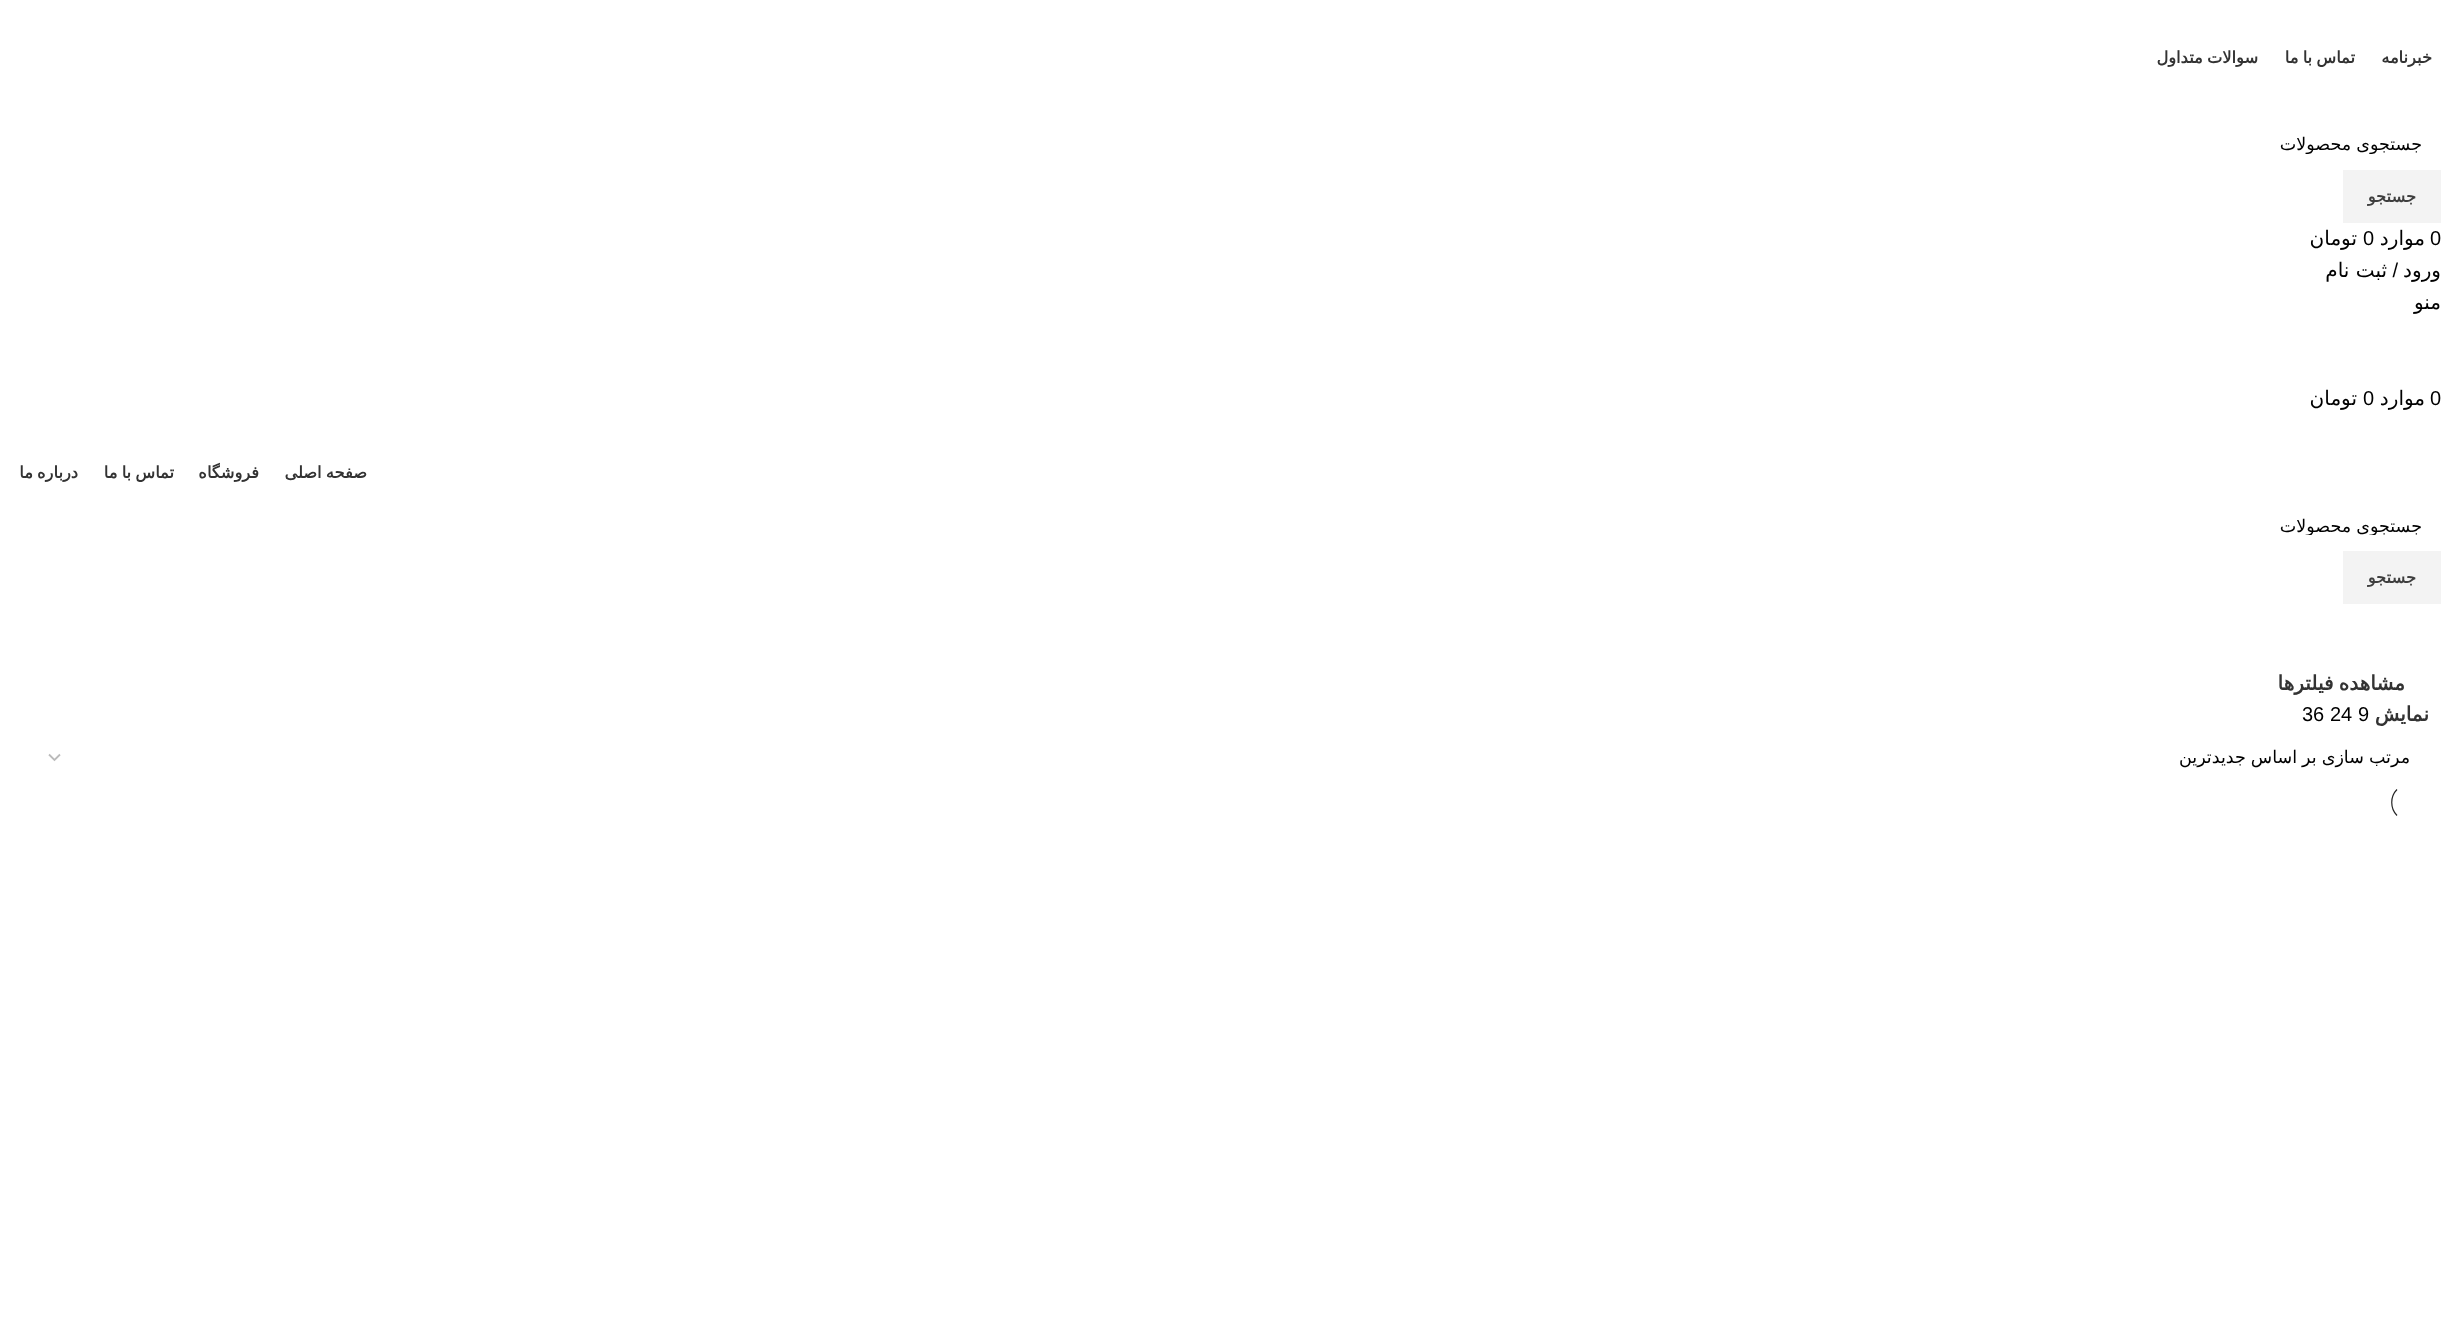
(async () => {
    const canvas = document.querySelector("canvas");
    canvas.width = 2459;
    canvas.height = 1327;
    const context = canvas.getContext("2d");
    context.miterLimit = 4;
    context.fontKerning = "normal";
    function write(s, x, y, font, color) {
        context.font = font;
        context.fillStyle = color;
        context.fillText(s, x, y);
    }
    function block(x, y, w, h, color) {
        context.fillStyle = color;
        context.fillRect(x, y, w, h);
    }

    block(0, 0, 2459, 1327, "rgb(255, 255, 255)");
    context.direction = "rtl";
    write("خبرنامه", 2432, 63, "bold 16.25px DejaVu Sans", "rgb(51, 51, 51)");
    context.wordSpacing = "-1px";
    write("تماس با ما", 2355, 63, "bold 16.25px DejaVu Sans", "rgb(51, 51, 51)");
    write("سوالات متداول", 2258, 63, "bold 16.25px DejaVu Sans", "rgb(51, 51, 51)");
    context.save();
    context.beginPath();
    context.rect(38, 134, 2385, 20);
    context.clip();
    context.wordSpacing = "-0.5px";
    write("جستجوی محصولات", 2422, 150, "17.5px DejaVu Sans", "rgb(0, 0, 0)");
    context.restore();
    block(2343, 170, 98, 53, "rgb(243, 243, 243)");
    context.wordSpacing = "0px";
    write("جستجو", 2416, 202, "bold 16.25px DejaVu Sans", "rgb(62, 62, 62)");
    context.direction = "ltr";
    write("0", 2430, 245, "20px Liberation Sans", "rgb(0, 0, 0)");
    context.direction = "rtl";
    write("موارد", 2425, 245, "20px DejaVu Sans", "rgb(0, 0, 0)");
    context.direction = "ltr";
    write("0", 2363, 245, "20px Liberation Sans", "rgb(0, 0, 0)");
    context.direction = "rtl";
    write("تومان", 2357, 245, "20px DejaVu Sans", "rgb(0, 0, 0)");
    write("ورود", 2441, 277, "20px DejaVu Sans", "rgb(0, 0, 0)");
    write("/", 2398, 277, "20px Liberation Sans", "rgb(0, 0, 0)");
    write("ثبت نام", 2387, 277, "20px DejaVu Sans", "rgb(0, 0, 0)");
    write("منو", 2441, 309, "20px DejaVu Sans", "rgb(0, 0, 0)");
    context.direction = "ltr";
    write("0", 2430, 405, "20px Liberation Sans", "rgb(0, 0, 0)");
    context.direction = "rtl";
    write("موارد", 2425, 405, "20px DejaVu Sans", "rgb(0, 0, 0)");
    context.direction = "ltr";
    write("0", 2363, 405, "20px Liberation Sans", "rgb(0, 0, 0)");
    context.direction = "rtl";
    write("تومان", 2357, 405, "20px DejaVu Sans", "rgb(0, 0, 0)");
    context.wordSpacing = "-1px";
    write("صفحه اصلی", 367, 478, "bold 16.25px DejaVu Sans", "rgb(51, 51, 51)");
    context.wordSpacing = "0px";
    write("فروشگاه", 259, 478, "bold 16.25px DejaVu Sans", "rgb(51, 51, 51)");
    context.wordSpacing = "-1px";
    write("تماس با ما", 174, 478, "bold 16.25px DejaVu Sans", "rgb(51, 51, 51)");
    write("درباره ما", 78, 478, "bold 16.25px DejaVu Sans", "rgb(51, 51, 51)");
    context.save();
    context.beginPath();
    context.rect(38, 515, 2385, 20);
    context.clip();
    context.wordSpacing = "-0.5px";
    write("جستجوی محصولات", 2422, 532, "17.5px DejaVu Sans", "rgb(0, 0, 0)");
    context.restore();
    block(2343, 551, 98, 53, "rgb(243, 243, 243)");
    context.wordSpacing = "0px";
    write("جستجو", 2416, 583, "bold 16.25px DejaVu Sans", "rgb(62, 62, 62)");
    context.wordSpacing = "-1px";
    write("مشاهده فیلترها", 2405, 690, "bold 20px DejaVu Sans", "rgb(51, 51, 51)");
    context.wordSpacing = "0px";
    write("نمایش", 2429, 721, "bold 20px DejaVu Sans", "rgb(51, 51, 51)");
    context.direction = "ltr";
    write("9", 2358, 721, "20px Liberation Sans", "rgb(0, 0, 0)");
    write("24", 2330, 721, "20px Liberation Sans", "rgb(0, 0, 0)");
    write("36", 2302, 721, "20px Liberation Sans", "rgb(0, 0, 0)");
    context.beginPath();
    context.moveTo(49, 754.5);
    context.lineTo(54.5, 760);
    context.lineTo(60, 754.5);
    context.strokeStyle = "rgb(187, 187, 187)";
    context.lineWidth = 1.8;
    context.stroke();
    context.wordSpacing = "-0.5px";
    context.direction = "rtl";
    write("مرتب سازی بر اساس جدیدترین", 2410, 763, "17.5px DejaVu Sans", "rgb(0, 0, 0)");
    context.beginPath();
    context.moveTo(2397, 815.5);
    context.bezierCurveTo(2390, 808.5, 2390, 796.5, 2397, 789.5);
    context.strokeStyle = "rgb(36, 36, 36)";
    context.lineWidth = 1.2;
    context.stroke();
})();
